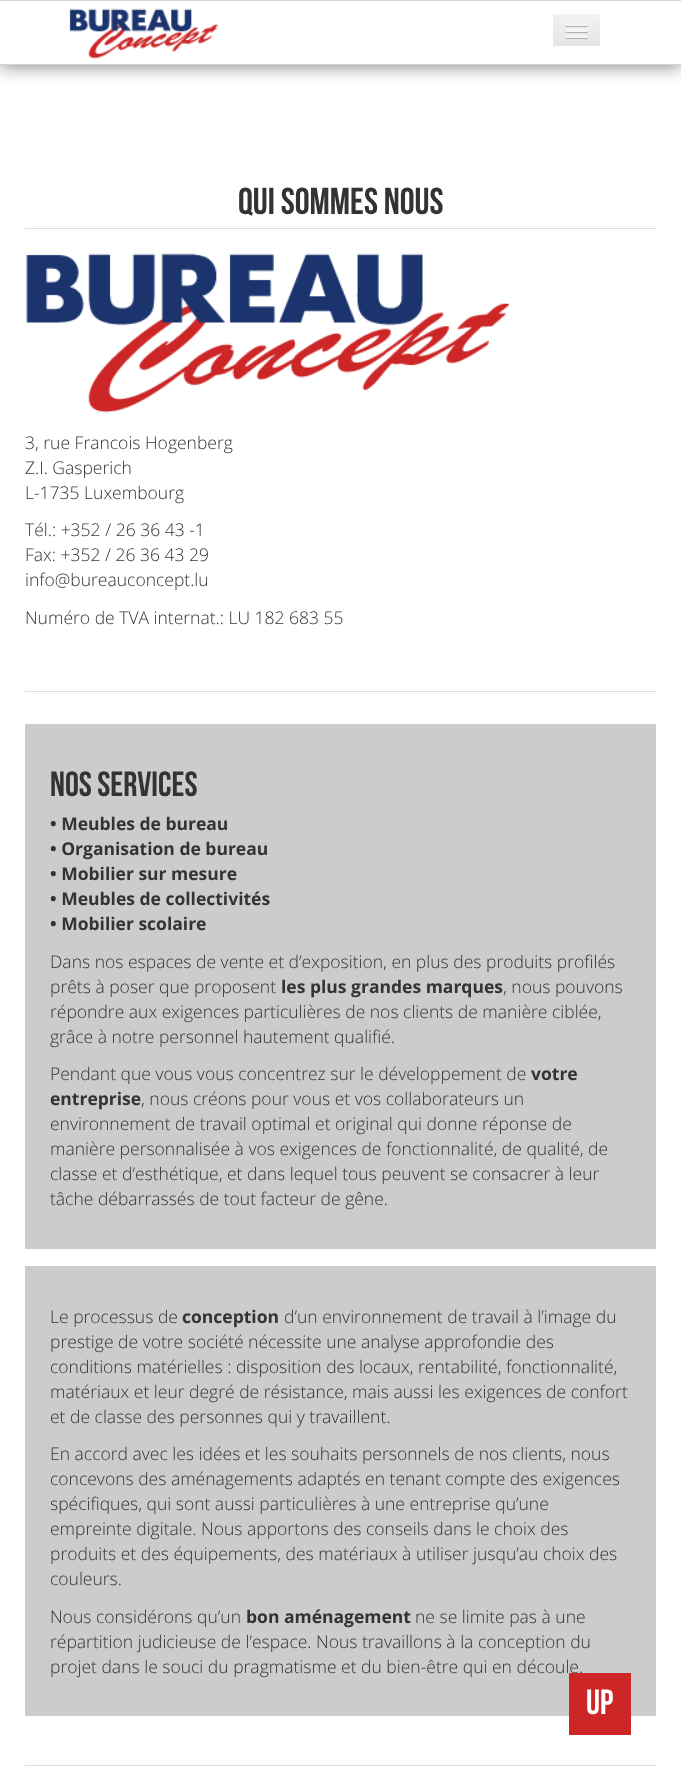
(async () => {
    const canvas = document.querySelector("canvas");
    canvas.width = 681;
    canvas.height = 1766;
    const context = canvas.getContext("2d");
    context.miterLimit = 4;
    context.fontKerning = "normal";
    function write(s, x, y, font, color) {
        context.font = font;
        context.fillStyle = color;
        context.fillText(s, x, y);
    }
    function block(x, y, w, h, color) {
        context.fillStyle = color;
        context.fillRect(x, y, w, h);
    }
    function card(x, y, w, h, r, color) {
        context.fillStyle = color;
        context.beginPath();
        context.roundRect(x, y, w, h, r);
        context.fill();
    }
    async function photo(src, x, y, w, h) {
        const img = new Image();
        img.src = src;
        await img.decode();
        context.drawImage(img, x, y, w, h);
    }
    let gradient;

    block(0, 0, 681, 1766, "rgb(255, 255, 255)");
    context.save();
    context.beginPath();
    context.rect(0, 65, 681, 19);
    context.clip();
    context.fillStyle = "rgb(112, 112, 112)";
    context.filter = "blur(9.5px)";
    context.beginPath();
    context.rect(0, 0, 681, 65);
    context.fill();
    context.filter = "none";
    context.restore();
    block(0, 0, 681, 1, "rgb(212, 212, 212)");
    block(0, 64, 681, 1, "rgb(212, 212, 212)");
    await photo("media/1.png", 69, 8, 149, 51);
    gradient = context.createLinearGradient(576, 14, 576, 46);
    gradient.addColorStop(0, "rgb(242, 242, 242)");
    gradient.addColorStop(1, "rgb(229, 229, 229)");
    context.fillStyle = gradient;
    context.fillRect(553, 14, 47, 32);
    context.fillStyle = "rgb(178, 178, 178)";
    context.beginPath();
    context.moveTo(565.5, 24.5);
    context.lineTo(565, 26);
    context.bezierCurveTo(565.5, 28, 569, 27, 570, 27);
    context.lineTo(583, 27);
    context.bezierCurveTo(584.5, 27, 588, 28, 588, 25.5);
    context.lineTo(587.5, 24.5);
    context.lineTo(586.5, 25);
    context.bezierCurveTo(584.5, 25.5, 566, 25.5, 565.5, 24.5);
    context.closePath();
    context.fill();
    card(565, 23, 23, 3, 1.5, "rgb(245, 245, 245)");
    context.fillStyle = "rgb(176, 176, 176)";
    context.beginPath();
    context.moveTo(565, 30.5);
    context.bezierCurveTo(563.5, 33.5, 569.5, 33, 570, 33);
    context.lineTo(583, 33);
    context.bezierCurveTo(584, 33, 587.5, 34, 588, 32);
    context.bezierCurveTo(588, 31.5, 588, 30.5, 587.5, 30.5);
    context.lineTo(586.5, 31);
    context.lineTo(566, 31);
    context.closePath();
    context.fill();
    card(565, 29, 23, 3, 1.5, "rgb(245, 245, 245)");
    context.fillStyle = "rgb(174, 174, 174)";
    context.beginPath();
    context.moveTo(565, 37);
    context.bezierCurveTo(564, 39.5, 569, 39, 570, 39);
    context.lineTo(583, 39);
    context.bezierCurveTo(584, 39, 587.5, 40, 588, 38);
    context.bezierCurveTo(588, 37.5, 588, 36.5, 587.5, 36.5);
    context.bezierCurveTo(587.5, 37, 587, 37.5, 586, 37.5);
    context.lineTo(566, 37.5);
    context.bezierCurveTo(566, 37.5, 565.5, 37, 565, 37);
    context.closePath();
    context.fill();
    card(565, 35, 23, 3, 1.5, "rgb(245, 245, 245)");
    block(25, 228, 631, 1, "rgb(221, 221, 221)");
    write("Qui sommes nous", 238, 214, "37.5px Bebas Neue", "rgb(51, 51, 51)");
    await photo("media/2.png", 26, 253, 483, 160);
    write("3, rue Francois Hogenberg", 25, 449, "300 17.5px Open Sans", "rgb(51, 51, 51)");
    write("Z.I. Gasperich", 25, 474, "300 17.5px Open Sans", "rgb(51, 51, 51)");
    write("L-1735 Luxembourg", 25, 499, "300 17.5px Open Sans", "rgb(51, 51, 51)");
    write("Tél.: +352 / 26 36 43 -1", 25, 536, "300 17.5px Open Sans", "rgb(51, 51, 51)");
    write("Fax: +352 / 26 36 43 29", 25, 561, "300 17.5px Open Sans", "rgb(51, 51, 51)");
    write("info@bureauconcept.lu", 25, 586, "300 17.5px Open Sans", "rgb(51, 51, 51)");
    write("Numéro de TVA internat.: LU 182 683 55", 25, 624, "300 17.5px Open Sans", "rgb(51, 51, 51)");
    block(25, 691, 631, 1, "rgb(221, 221, 221)");
    block(25, 724, 631, 525, "rgb(204, 204, 204)");
    write("Nos services", 50, 796, "35px Bebas Neue", "rgb(51, 51, 51)");
    write("• Meubles de bureau", 50, 830, "bold 17.5px Open Sans", "rgb(51, 51, 51)");
    write("• Organisation de bureau", 50, 855, "bold 17.5px Open Sans", "rgb(51, 51, 51)");
    write("• Mobilier sur mesure", 50, 880, "bold 17.5px Open Sans", "rgb(51, 51, 51)");
    write("• Meubles de collectivités", 50, 905, "bold 17.5px Open Sans", "rgb(51, 51, 51)");
    write("• Mobilier scolaire", 50, 930, "bold 17.5px Open Sans", "rgb(51, 51, 51)");
    write("Dans nos espaces de vente et d’exposition, en plus des produits profilés", 50, 968, "300 17.5px Open Sans", "rgb(51, 51, 51)");
    write("prêts à poser que proposent", 50, 993, "300 17.5px Open Sans", "rgb(51, 51, 51)");
    write("les plus grandes marques", 281, 993, "bold 17.5px Open Sans", "rgb(51, 51, 51)");
    write(", nous pouvons", 503, 993, "300 17.5px Open Sans", "rgb(51, 51, 51)");
    write("répondre aux exigences particulières de nos clients de manière ciblée,", 50, 1018, "300 17.5px Open Sans", "rgb(51, 51, 51)");
    write("grâce à notre personnel hautement qualifié.", 50, 1043, "300 17.5px Open Sans", "rgb(51, 51, 51)");
    write("Pendant que vous vous concentrez sur le développement de", 50, 1080, "300 17.5px Open Sans", "rgb(51, 51, 51)");
    write("votre", 531, 1080, "bold 17.5px Open Sans", "rgb(51, 51, 51)");
    write("entreprise", 50, 1105, "bold 17.5px Open Sans", "rgb(51, 51, 51)");
    write(", nous créons pour vous et vos collaborateurs un", 141, 1105, "300 17.5px Open Sans", "rgb(51, 51, 51)");
    write("environnement de travail optimal et original qui donne réponse de", 50, 1130, "300 17.5px Open Sans", "rgb(51, 51, 51)");
    write("manière personnalisée à vos exigences de fonctionnalité, de qualité, de", 50, 1155, "300 17.5px Open Sans", "rgb(51, 51, 51)");
    write("classe et d’esthétique, et dans lequel tous peuvent se consacrer à leur", 50, 1180, "300 17.5px Open Sans", "rgb(51, 51, 51)");
    write("tâche débarrassés de tout facteur de gêne.", 50, 1205, "300 17.5px Open Sans", "rgb(51, 51, 51)");
    block(25, 1266, 631, 450, "rgb(204, 204, 204)");
    write("Le processus de", 50, 1323, "300 17.5px Open Sans", "rgb(51, 51, 51)");
    write("conception", 182, 1323, "bold 17.5px Open Sans", "rgb(51, 51, 51)");
    write("d’un environnement de travail à l’image du", 284, 1323, "300 17.5px Open Sans", "rgb(51, 51, 51)");
    write("prestige de votre société nécessite une analyse approfondie des", 50, 1348, "300 17.5px Open Sans", "rgb(51, 51, 51)");
    write("conditions matérielles : disposition des locaux, rentabilité, fonctionnalité,", 50, 1373, "300 17.5px Open Sans", "rgb(51, 51, 51)");
    write("matériaux et leur degré de résistance, mais aussi les exigences de confort", 50, 1398, "300 17.5px Open Sans", "rgb(51, 51, 51)");
    write("et de classe des personnes qui y travaillent.", 50, 1423, "300 17.5px Open Sans", "rgb(51, 51, 51)");
    write("En accord avec les idées et les souhaits personnels de nos clients, nous", 50, 1460, "300 17.5px Open Sans", "rgb(51, 51, 51)");
    write("concevons des aménagements adaptés en tenant compte des exigences", 50, 1485, "300 17.5px Open Sans", "rgb(51, 51, 51)");
    write("spécifiques, qui sont aussi particulières à une entreprise qu’une", 50, 1510, "300 17.5px Open Sans", "rgb(51, 51, 51)");
    write("empreinte digitale. Nous apportons des conseils dans le choix des", 50, 1535, "300 17.5px Open Sans", "rgb(51, 51, 51)");
    write("produits et des équipements, des matériaux à utiliser jusqu’au choix des", 50, 1560, "300 17.5px Open Sans", "rgb(51, 51, 51)");
    write("couleurs.", 50, 1585, "300 17.5px Open Sans", "rgb(51, 51, 51)");
    write("Nous considérons qu’un", 50, 1623, "300 17.5px Open Sans", "rgb(51, 51, 51)");
    write("bon aménagement", 246, 1623, "bold 17.5px Open Sans", "rgb(51, 51, 51)");
    write("ne se limite pas à une", 415, 1623, "300 17.5px Open Sans", "rgb(51, 51, 51)");
    write("répartition judicieuse de l’espace. Nous travaillons à la conception du", 50, 1648, "300 17.5px Open Sans", "rgb(51, 51, 51)");
    write("projet dans le souci du pragmatisme et du bien-être qui en découle.", 50, 1673, "300 17.5px Open Sans", "rgb(51, 51, 51)");
    block(25, 1765, 631, 1, "rgb(221, 221, 221)");
    block(569, 1673, 62, 62, "rgb(204, 38, 39)");
    write("UP", 586, 1714, "35px Bebas Neue", "rgb(255, 255, 255)");
})();
